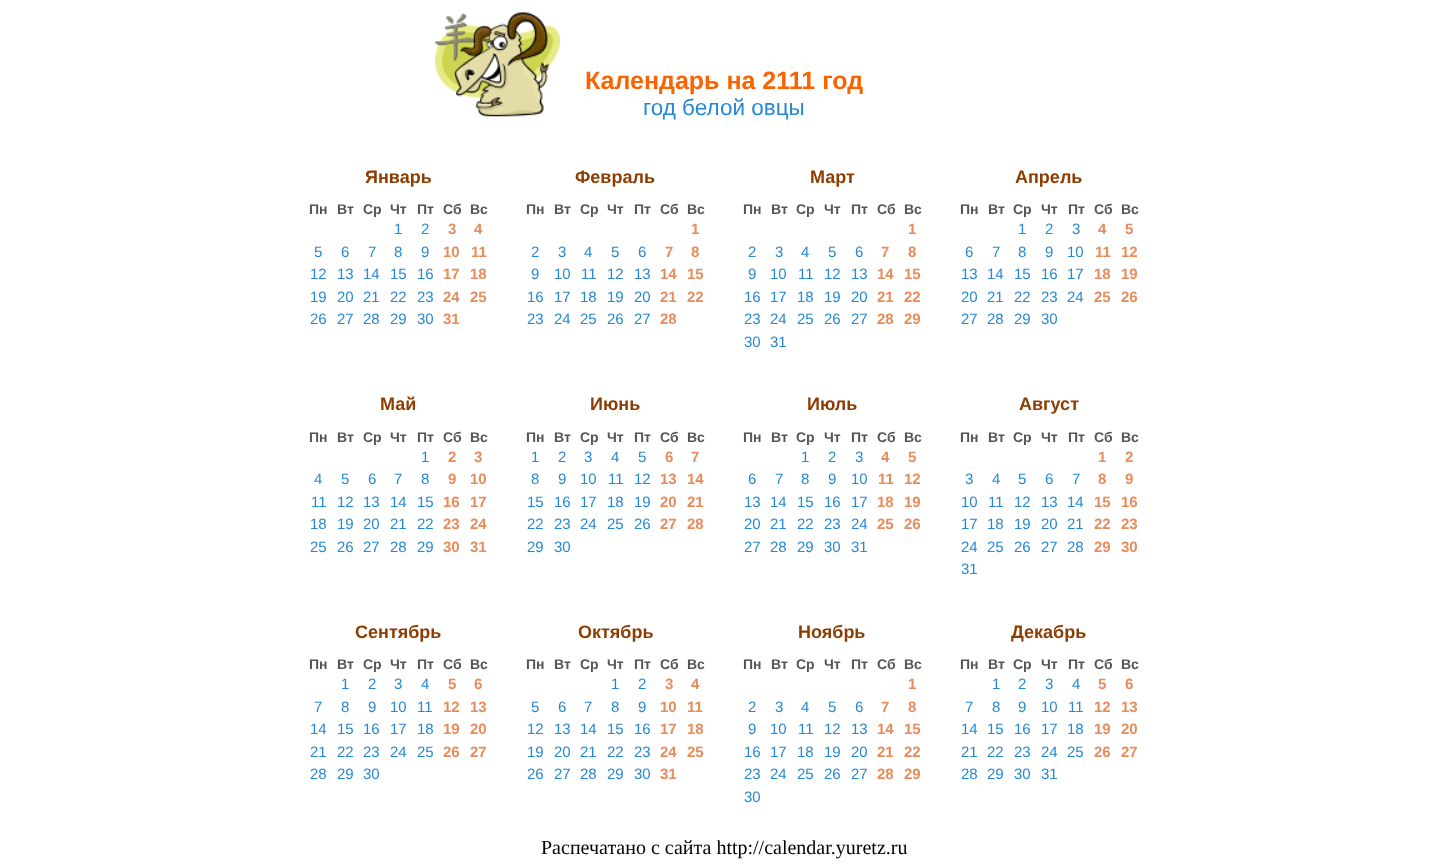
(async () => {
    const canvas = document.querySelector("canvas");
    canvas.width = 1447;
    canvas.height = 865;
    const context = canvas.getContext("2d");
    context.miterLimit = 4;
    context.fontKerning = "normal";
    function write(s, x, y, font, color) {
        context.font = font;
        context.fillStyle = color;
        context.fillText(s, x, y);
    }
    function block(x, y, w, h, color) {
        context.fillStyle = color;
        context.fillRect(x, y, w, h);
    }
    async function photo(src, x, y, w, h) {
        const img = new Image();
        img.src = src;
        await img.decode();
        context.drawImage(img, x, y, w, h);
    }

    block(0, 0, 1447, 865, "rgb(255, 255, 255)");
    await photo("media/1.png", 435, 12, 125, 105);
    write("Календарь на 2111 год", 585, 89, "bold 25px Liberation Sans", "rgb(249, 100, 0)");
    write("год белой овцы", 643, 115, "22.5px Liberation Sans", "rgb(38, 136, 211)");
    write("Январь", 365, 183, "bold 18px Liberation Sans", "rgb(140, 61, 2)");
    write("Пн", 309, 214, "bold 14px Liberation Sans", "rgb(85, 85, 85)");
    write("Вт", 337, 214, "bold 14px Liberation Sans", "rgb(85, 85, 85)");
    write("Ср", 363, 214, "bold 14px Liberation Sans", "rgb(85, 85, 85)");
    write("Чт", 390, 214, "bold 14px Liberation Sans", "rgb(85, 85, 85)");
    write("Пт", 417, 214, "bold 14px Liberation Sans", "rgb(85, 85, 85)");
    write("Сб", 443, 214, "bold 14px Liberation Sans", "rgb(85, 85, 85)");
    write("Вс", 470, 214, "bold 14px Liberation Sans", "rgb(85, 85, 85)");
    write("1", 394, 234, "15px Liberation Sans", "rgb(38, 136, 211)");
    write("2", 421, 234, "15px Liberation Sans", "rgb(38, 136, 211)");
    write("3", 448, 234, "bold 15px Liberation Sans", "rgb(231, 140, 92)");
    write("4", 474, 234, "bold 15px Liberation Sans", "rgb(231, 140, 92)");
    write("5", 314, 257, "15px Liberation Sans", "rgb(38, 136, 211)");
    write("6", 341, 257, "15px Liberation Sans", "rgb(38, 136, 211)");
    write("7", 368, 257, "15px Liberation Sans", "rgb(38, 136, 211)");
    write("8", 394, 257, "15px Liberation Sans", "rgb(38, 136, 211)");
    write("9", 421, 257, "15px Liberation Sans", "rgb(38, 136, 211)");
    write("10", 443, 257, "bold 15px Liberation Sans", "rgb(231, 140, 92)");
    write("11", 471, 257, "bold 15px Liberation Sans", "rgb(231, 140, 92)");
    write("12", 310, 279, "15px Liberation Sans", "rgb(38, 136, 211)");
    write("13", 337, 279, "15px Liberation Sans", "rgb(38, 136, 211)");
    write("14", 363, 279, "15px Liberation Sans", "rgb(38, 136, 211)");
    write("15", 390, 279, "15px Liberation Sans", "rgb(38, 136, 211)");
    write("16", 417, 279, "15px Liberation Sans", "rgb(38, 136, 211)");
    write("17", 443, 279, "bold 15px Liberation Sans", "rgb(231, 140, 92)");
    write("18", 470, 279, "bold 15px Liberation Sans", "rgb(231, 140, 92)");
    write("19", 310, 302, "15px Liberation Sans", "rgb(38, 136, 211)");
    write("20", 337, 302, "15px Liberation Sans", "rgb(38, 136, 211)");
    write("21", 363, 302, "15px Liberation Sans", "rgb(38, 136, 211)");
    write("22", 390, 302, "15px Liberation Sans", "rgb(38, 136, 211)");
    write("23", 417, 302, "15px Liberation Sans", "rgb(38, 136, 211)");
    write("24", 443, 302, "bold 15px Liberation Sans", "rgb(231, 140, 92)");
    write("25", 470, 302, "bold 15px Liberation Sans", "rgb(231, 140, 92)");
    write("26", 310, 324, "15px Liberation Sans", "rgb(38, 136, 211)");
    write("27", 337, 324, "15px Liberation Sans", "rgb(38, 136, 211)");
    write("28", 363, 324, "15px Liberation Sans", "rgb(38, 136, 211)");
    write("29", 390, 324, "15px Liberation Sans", "rgb(38, 136, 211)");
    write("30", 417, 324, "15px Liberation Sans", "rgb(38, 136, 211)");
    write("31", 443, 324, "bold 15px Liberation Sans", "rgb(231, 140, 92)");
    write("Февраль", 575, 183, "bold 18px Liberation Sans", "rgb(140, 61, 2)");
    write("Пн", 526, 214, "bold 14px Liberation Sans", "rgb(85, 85, 85)");
    write("Вт", 554, 214, "bold 14px Liberation Sans", "rgb(85, 85, 85)");
    write("Ср", 580, 214, "bold 14px Liberation Sans", "rgb(85, 85, 85)");
    write("Чт", 607, 214, "bold 14px Liberation Sans", "rgb(85, 85, 85)");
    write("Пт", 634, 214, "bold 14px Liberation Sans", "rgb(85, 85, 85)");
    write("Сб", 660, 214, "bold 14px Liberation Sans", "rgb(85, 85, 85)");
    write("Вс", 687, 214, "bold 14px Liberation Sans", "rgb(85, 85, 85)");
    write("1", 691, 234, "bold 15px Liberation Sans", "rgb(231, 140, 92)");
    write("2", 531, 257, "15px Liberation Sans", "rgb(38, 136, 211)");
    write("3", 558, 257, "15px Liberation Sans", "rgb(38, 136, 211)");
    write("4", 584, 257, "15px Liberation Sans", "rgb(38, 136, 211)");
    write("5", 611, 257, "15px Liberation Sans", "rgb(38, 136, 211)");
    write("6", 638, 257, "15px Liberation Sans", "rgb(38, 136, 211)");
    write("7", 665, 257, "bold 15px Liberation Sans", "rgb(231, 140, 92)");
    write("8", 691, 257, "bold 15px Liberation Sans", "rgb(231, 140, 92)");
    write("9", 531, 279, "15px Liberation Sans", "rgb(38, 136, 211)");
    write("10", 554, 279, "15px Liberation Sans", "rgb(38, 136, 211)");
    write("11", 581, 279, "15px Liberation Sans", "rgb(38, 136, 211)");
    write("12", 607, 279, "15px Liberation Sans", "rgb(38, 136, 211)");
    write("13", 634, 279, "15px Liberation Sans", "rgb(38, 136, 211)");
    write("14", 660, 279, "bold 15px Liberation Sans", "rgb(231, 140, 92)");
    write("15", 687, 279, "bold 15px Liberation Sans", "rgb(231, 140, 92)");
    write("16", 527, 302, "15px Liberation Sans", "rgb(38, 136, 211)");
    write("17", 554, 302, "15px Liberation Sans", "rgb(38, 136, 211)");
    write("18", 580, 302, "15px Liberation Sans", "rgb(38, 136, 211)");
    write("19", 607, 302, "15px Liberation Sans", "rgb(38, 136, 211)");
    write("20", 634, 302, "15px Liberation Sans", "rgb(38, 136, 211)");
    write("21", 660, 302, "bold 15px Liberation Sans", "rgb(231, 140, 92)");
    write("22", 687, 302, "bold 15px Liberation Sans", "rgb(231, 140, 92)");
    write("23", 527, 324, "15px Liberation Sans", "rgb(38, 136, 211)");
    write("24", 554, 324, "15px Liberation Sans", "rgb(38, 136, 211)");
    write("25", 580, 324, "15px Liberation Sans", "rgb(38, 136, 211)");
    write("26", 607, 324, "15px Liberation Sans", "rgb(38, 136, 211)");
    write("27", 634, 324, "15px Liberation Sans", "rgb(38, 136, 211)");
    write("28", 660, 324, "bold 15px Liberation Sans", "rgb(231, 140, 92)");
    write("Март", 810, 183, "bold 18px Liberation Sans", "rgb(140, 61, 2)");
    write("Пн", 743, 214, "bold 14px Liberation Sans", "rgb(85, 85, 85)");
    write("Вт", 771, 214, "bold 14px Liberation Sans", "rgb(85, 85, 85)");
    write("Ср", 796, 214, "bold 14px Liberation Sans", "rgb(85, 85, 85)");
    write("Чт", 824, 214, "bold 14px Liberation Sans", "rgb(85, 85, 85)");
    write("Пт", 851, 214, "bold 14px Liberation Sans", "rgb(85, 85, 85)");
    write("Сб", 877, 214, "bold 14px Liberation Sans", "rgb(85, 85, 85)");
    write("Вс", 904, 214, "bold 14px Liberation Sans", "rgb(85, 85, 85)");
    write("1", 908, 234, "bold 15px Liberation Sans", "rgb(231, 140, 92)");
    write("2", 748, 257, "15px Liberation Sans", "rgb(38, 136, 211)");
    write("3", 775, 257, "15px Liberation Sans", "rgb(38, 136, 211)");
    write("4", 801, 257, "15px Liberation Sans", "rgb(38, 136, 211)");
    write("5", 828, 257, "15px Liberation Sans", "rgb(38, 136, 211)");
    write("6", 855, 257, "15px Liberation Sans", "rgb(38, 136, 211)");
    write("7", 881, 257, "bold 15px Liberation Sans", "rgb(231, 140, 92)");
    write("8", 908, 257, "bold 15px Liberation Sans", "rgb(231, 140, 92)");
    write("9", 748, 279, "15px Liberation Sans", "rgb(38, 136, 211)");
    write("10", 770, 279, "15px Liberation Sans", "rgb(38, 136, 211)");
    write("11", 798, 279, "15px Liberation Sans", "rgb(38, 136, 211)");
    write("12", 824, 279, "15px Liberation Sans", "rgb(38, 136, 211)");
    write("13", 851, 279, "15px Liberation Sans", "rgb(38, 136, 211)");
    write("14", 877, 279, "bold 15px Liberation Sans", "rgb(231, 140, 92)");
    write("15", 904, 279, "bold 15px Liberation Sans", "rgb(231, 140, 92)");
    write("16", 744, 302, "15px Liberation Sans", "rgb(38, 136, 211)");
    write("17", 770, 302, "15px Liberation Sans", "rgb(38, 136, 211)");
    write("18", 797, 302, "15px Liberation Sans", "rgb(38, 136, 211)");
    write("19", 824, 302, "15px Liberation Sans", "rgb(38, 136, 211)");
    write("20", 851, 302, "15px Liberation Sans", "rgb(38, 136, 211)");
    write("21", 877, 302, "bold 15px Liberation Sans", "rgb(231, 140, 92)");
    write("22", 904, 302, "bold 15px Liberation Sans", "rgb(231, 140, 92)");
    write("23", 744, 324, "15px Liberation Sans", "rgb(38, 136, 211)");
    write("24", 770, 324, "15px Liberation Sans", "rgb(38, 136, 211)");
    write("25", 797, 324, "15px Liberation Sans", "rgb(38, 136, 211)");
    write("26", 824, 324, "15px Liberation Sans", "rgb(38, 136, 211)");
    write("27", 851, 324, "15px Liberation Sans", "rgb(38, 136, 211)");
    write("28", 877, 324, "bold 15px Liberation Sans", "rgb(231, 140, 92)");
    write("29", 904, 324, "bold 15px Liberation Sans", "rgb(231, 140, 92)");
    write("30", 744, 347, "15px Liberation Sans", "rgb(38, 136, 211)");
    write("31", 770, 347, "15px Liberation Sans", "rgb(38, 136, 211)");
    write("Апрель", 1015, 183, "bold 18px Liberation Sans", "rgb(140, 61, 2)");
    write("Пн", 960, 214, "bold 14px Liberation Sans", "rgb(85, 85, 85)");
    write("Вт", 988, 214, "bold 14px Liberation Sans", "rgb(85, 85, 85)");
    write("Ср", 1013, 214, "bold 14px Liberation Sans", "rgb(85, 85, 85)");
    write("Чт", 1041, 214, "bold 14px Liberation Sans", "rgb(85, 85, 85)");
    write("Пт", 1068, 214, "bold 14px Liberation Sans", "rgb(85, 85, 85)");
    write("Сб", 1094, 214, "bold 14px Liberation Sans", "rgb(85, 85, 85)");
    write("Вс", 1121, 214, "bold 14px Liberation Sans", "rgb(85, 85, 85)");
    write("1", 1018, 234, "15px Liberation Sans", "rgb(38, 136, 211)");
    write("2", 1045, 234, "15px Liberation Sans", "rgb(38, 136, 211)");
    write("3", 1072, 234, "15px Liberation Sans", "rgb(38, 136, 211)");
    write("4", 1098, 234, "bold 15px Liberation Sans", "rgb(231, 140, 92)");
    write("5", 1125, 234, "bold 15px Liberation Sans", "rgb(231, 140, 92)");
    write("6", 965, 257, "15px Liberation Sans", "rgb(38, 136, 211)");
    write("7", 992, 257, "15px Liberation Sans", "rgb(38, 136, 211)");
    write("8", 1018, 257, "15px Liberation Sans", "rgb(38, 136, 211)");
    write("9", 1045, 257, "15px Liberation Sans", "rgb(38, 136, 211)");
    write("10", 1067, 257, "15px Liberation Sans", "rgb(38, 136, 211)");
    write("11", 1095, 257, "bold 15px Liberation Sans", "rgb(231, 140, 92)");
    write("12", 1121, 257, "bold 15px Liberation Sans", "rgb(231, 140, 92)");
    write("13", 961, 279, "15px Liberation Sans", "rgb(38, 136, 211)");
    write("14", 987, 279, "15px Liberation Sans", "rgb(38, 136, 211)");
    write("15", 1014, 279, "15px Liberation Sans", "rgb(38, 136, 211)");
    write("16", 1041, 279, "15px Liberation Sans", "rgb(38, 136, 211)");
    write("17", 1067, 279, "15px Liberation Sans", "rgb(38, 136, 211)");
    write("18", 1094, 279, "bold 15px Liberation Sans", "rgb(231, 140, 92)");
    write("19", 1121, 279, "bold 15px Liberation Sans", "rgb(231, 140, 92)");
    write("20", 961, 302, "15px Liberation Sans", "rgb(38, 136, 211)");
    write("21", 987, 302, "15px Liberation Sans", "rgb(38, 136, 211)");
    write("22", 1014, 302, "15px Liberation Sans", "rgb(38, 136, 211)");
    write("23", 1041, 302, "15px Liberation Sans", "rgb(38, 136, 211)");
    write("24", 1067, 302, "15px Liberation Sans", "rgb(38, 136, 211)");
    write("25", 1094, 302, "bold 15px Liberation Sans", "rgb(231, 140, 92)");
    write("26", 1121, 302, "bold 15px Liberation Sans", "rgb(231, 140, 92)");
    write("27", 961, 324, "15px Liberation Sans", "rgb(38, 136, 211)");
    write("28", 987, 324, "15px Liberation Sans", "rgb(38, 136, 211)");
    write("29", 1014, 324, "15px Liberation Sans", "rgb(38, 136, 211)");
    write("30", 1041, 324, "15px Liberation Sans", "rgb(38, 136, 211)");
    write("Май", 380, 410, "bold 18px Liberation Sans", "rgb(140, 61, 2)");
    write("Пн", 309, 442, "bold 14px Liberation Sans", "rgb(85, 85, 85)");
    write("Вт", 337, 442, "bold 14px Liberation Sans", "rgb(85, 85, 85)");
    write("Ср", 363, 442, "bold 14px Liberation Sans", "rgb(85, 85, 85)");
    write("Чт", 390, 442, "bold 14px Liberation Sans", "rgb(85, 85, 85)");
    write("Пт", 417, 442, "bold 14px Liberation Sans", "rgb(85, 85, 85)");
    write("Сб", 443, 442, "bold 14px Liberation Sans", "rgb(85, 85, 85)");
    write("Вс", 470, 442, "bold 14px Liberation Sans", "rgb(85, 85, 85)");
    write("1", 421, 462, "15px Liberation Sans", "rgb(38, 136, 211)");
    write("2", 448, 462, "bold 15px Liberation Sans", "rgb(231, 140, 92)");
    write("3", 474, 462, "bold 15px Liberation Sans", "rgb(231, 140, 92)");
    write("4", 314, 484, "15px Liberation Sans", "rgb(38, 136, 211)");
    write("5", 341, 484, "15px Liberation Sans", "rgb(38, 136, 211)");
    write("6", 368, 484, "15px Liberation Sans", "rgb(38, 136, 211)");
    write("7", 394, 484, "15px Liberation Sans", "rgb(38, 136, 211)");
    write("8", 421, 484, "15px Liberation Sans", "rgb(38, 136, 211)");
    write("9", 448, 484, "bold 15px Liberation Sans", "rgb(231, 140, 92)");
    write("10", 470, 484, "bold 15px Liberation Sans", "rgb(231, 140, 92)");
    write("11", 311, 507, "15px Liberation Sans", "rgb(38, 136, 211)");
    write("12", 337, 507, "15px Liberation Sans", "rgb(38, 136, 211)");
    write("13", 363, 507, "15px Liberation Sans", "rgb(38, 136, 211)");
    write("14", 390, 507, "15px Liberation Sans", "rgb(38, 136, 211)");
    write("15", 417, 507, "15px Liberation Sans", "rgb(38, 136, 211)");
    write("16", 443, 507, "bold 15px Liberation Sans", "rgb(231, 140, 92)");
    write("17", 470, 507, "bold 15px Liberation Sans", "rgb(231, 140, 92)");
    write("18", 310, 529, "15px Liberation Sans", "rgb(38, 136, 211)");
    write("19", 337, 529, "15px Liberation Sans", "rgb(38, 136, 211)");
    write("20", 363, 529, "15px Liberation Sans", "rgb(38, 136, 211)");
    write("21", 390, 529, "15px Liberation Sans", "rgb(38, 136, 211)");
    write("22", 417, 529, "15px Liberation Sans", "rgb(38, 136, 211)");
    write("23", 443, 529, "bold 15px Liberation Sans", "rgb(231, 140, 92)");
    write("24", 470, 529, "bold 15px Liberation Sans", "rgb(231, 140, 92)");
    write("25", 310, 552, "15px Liberation Sans", "rgb(38, 136, 211)");
    write("26", 337, 552, "15px Liberation Sans", "rgb(38, 136, 211)");
    write("27", 363, 552, "15px Liberation Sans", "rgb(38, 136, 211)");
    write("28", 390, 552, "15px Liberation Sans", "rgb(38, 136, 211)");
    write("29", 417, 552, "15px Liberation Sans", "rgb(38, 136, 211)");
    write("30", 443, 552, "bold 15px Liberation Sans", "rgb(231, 140, 92)");
    write("31", 470, 552, "bold 15px Liberation Sans", "rgb(231, 140, 92)");
    write("Июнь", 590, 410, "bold 18px Liberation Sans", "rgb(140, 61, 2)");
    write("Пн", 526, 442, "bold 14px Liberation Sans", "rgb(85, 85, 85)");
    write("Вт", 554, 442, "bold 14px Liberation Sans", "rgb(85, 85, 85)");
    write("Ср", 580, 442, "bold 14px Liberation Sans", "rgb(85, 85, 85)");
    write("Чт", 607, 442, "bold 14px Liberation Sans", "rgb(85, 85, 85)");
    write("Пт", 634, 442, "bold 14px Liberation Sans", "rgb(85, 85, 85)");
    write("Сб", 660, 442, "bold 14px Liberation Sans", "rgb(85, 85, 85)");
    write("Вс", 687, 442, "bold 14px Liberation Sans", "rgb(85, 85, 85)");
    write("1", 531, 462, "15px Liberation Sans", "rgb(38, 136, 211)");
    write("2", 558, 462, "15px Liberation Sans", "rgb(38, 136, 211)");
    write("3", 584, 462, "15px Liberation Sans", "rgb(38, 136, 211)");
    write("4", 611, 462, "15px Liberation Sans", "rgb(38, 136, 211)");
    write("5", 638, 462, "15px Liberation Sans", "rgb(38, 136, 211)");
    write("6", 665, 462, "bold 15px Liberation Sans", "rgb(231, 140, 92)");
    write("7", 691, 462, "bold 15px Liberation Sans", "rgb(231, 140, 92)");
    write("8", 531, 484, "15px Liberation Sans", "rgb(38, 136, 211)");
    write("9", 558, 484, "15px Liberation Sans", "rgb(38, 136, 211)");
    write("10", 580, 484, "15px Liberation Sans", "rgb(38, 136, 211)");
    write("11", 608, 484, "15px Liberation Sans", "rgb(38, 136, 211)");
    write("12", 634, 484, "15px Liberation Sans", "rgb(38, 136, 211)");
    write("13", 660, 484, "bold 15px Liberation Sans", "rgb(231, 140, 92)");
    write("14", 687, 484, "bold 15px Liberation Sans", "rgb(231, 140, 92)");
    write("15", 527, 507, "15px Liberation Sans", "rgb(38, 136, 211)");
    write("16", 554, 507, "15px Liberation Sans", "rgb(38, 136, 211)");
    write("17", 580, 507, "15px Liberation Sans", "rgb(38, 136, 211)");
    write("18", 607, 507, "15px Liberation Sans", "rgb(38, 136, 211)");
    write("19", 634, 507, "15px Liberation Sans", "rgb(38, 136, 211)");
    write("20", 660, 507, "bold 15px Liberation Sans", "rgb(231, 140, 92)");
    write("21", 687, 507, "bold 15px Liberation Sans", "rgb(231, 140, 92)");
    write("22", 527, 529, "15px Liberation Sans", "rgb(38, 136, 211)");
    write("23", 554, 529, "15px Liberation Sans", "rgb(38, 136, 211)");
    write("24", 580, 529, "15px Liberation Sans", "rgb(38, 136, 211)");
    write("25", 607, 529, "15px Liberation Sans", "rgb(38, 136, 211)");
    write("26", 634, 529, "15px Liberation Sans", "rgb(38, 136, 211)");
    write("27", 660, 529, "bold 15px Liberation Sans", "rgb(231, 140, 92)");
    write("28", 687, 529, "bold 15px Liberation Sans", "rgb(231, 140, 92)");
    write("29", 527, 552, "15px Liberation Sans", "rgb(38, 136, 211)");
    write("30", 554, 552, "15px Liberation Sans", "rgb(38, 136, 211)");
    write("Июль", 807, 410, "bold 18px Liberation Sans", "rgb(140, 61, 2)");
    write("Пн", 743, 442, "bold 14px Liberation Sans", "rgb(85, 85, 85)");
    write("Вт", 771, 442, "bold 14px Liberation Sans", "rgb(85, 85, 85)");
    write("Ср", 796, 442, "bold 14px Liberation Sans", "rgb(85, 85, 85)");
    write("Чт", 824, 442, "bold 14px Liberation Sans", "rgb(85, 85, 85)");
    write("Пт", 851, 442, "bold 14px Liberation Sans", "rgb(85, 85, 85)");
    write("Сб", 877, 442, "bold 14px Liberation Sans", "rgb(85, 85, 85)");
    write("Вс", 904, 442, "bold 14px Liberation Sans", "rgb(85, 85, 85)");
    write("1", 801, 462, "15px Liberation Sans", "rgb(38, 136, 211)");
    write("2", 828, 462, "15px Liberation Sans", "rgb(38, 136, 211)");
    write("3", 855, 462, "15px Liberation Sans", "rgb(38, 136, 211)");
    write("4", 881, 462, "bold 15px Liberation Sans", "rgb(231, 140, 92)");
    write("5", 908, 462, "bold 15px Liberation Sans", "rgb(231, 140, 92)");
    write("6", 748, 484, "15px Liberation Sans", "rgb(38, 136, 211)");
    write("7", 775, 484, "15px Liberation Sans", "rgb(38, 136, 211)");
    write("8", 801, 484, "15px Liberation Sans", "rgb(38, 136, 211)");
    write("9", 828, 484, "15px Liberation Sans", "rgb(38, 136, 211)");
    write("10", 851, 484, "15px Liberation Sans", "rgb(38, 136, 211)");
    write("11", 878, 484, "bold 15px Liberation Sans", "rgb(231, 140, 92)");
    write("12", 904, 484, "bold 15px Liberation Sans", "rgb(231, 140, 92)");
    write("13", 744, 507, "15px Liberation Sans", "rgb(38, 136, 211)");
    write("14", 770, 507, "15px Liberation Sans", "rgb(38, 136, 211)");
    write("15", 797, 507, "15px Liberation Sans", "rgb(38, 136, 211)");
    write("16", 824, 507, "15px Liberation Sans", "rgb(38, 136, 211)");
    write("17", 851, 507, "15px Liberation Sans", "rgb(38, 136, 211)");
    write("18", 877, 507, "bold 15px Liberation Sans", "rgb(231, 140, 92)");
    write("19", 904, 507, "bold 15px Liberation Sans", "rgb(231, 140, 92)");
    write("20", 744, 529, "15px Liberation Sans", "rgb(38, 136, 211)");
    write("21", 770, 529, "15px Liberation Sans", "rgb(38, 136, 211)");
    write("22", 797, 529, "15px Liberation Sans", "rgb(38, 136, 211)");
    write("23", 824, 529, "15px Liberation Sans", "rgb(38, 136, 211)");
    write("24", 851, 529, "15px Liberation Sans", "rgb(38, 136, 211)");
    write("25", 877, 529, "bold 15px Liberation Sans", "rgb(231, 140, 92)");
    write("26", 904, 529, "bold 15px Liberation Sans", "rgb(231, 140, 92)");
    write("27", 744, 552, "15px Liberation Sans", "rgb(38, 136, 211)");
    write("28", 770, 552, "15px Liberation Sans", "rgb(38, 136, 211)");
    write("29", 797, 552, "15px Liberation Sans", "rgb(38, 136, 211)");
    write("30", 824, 552, "15px Liberation Sans", "rgb(38, 136, 211)");
    write("31", 851, 552, "15px Liberation Sans", "rgb(38, 136, 211)");
    write("Август", 1019, 410, "bold 18px Liberation Sans", "rgb(140, 61, 2)");
    write("Пн", 960, 442, "bold 14px Liberation Sans", "rgb(85, 85, 85)");
    write("Вт", 988, 442, "bold 14px Liberation Sans", "rgb(85, 85, 85)");
    write("Ср", 1013, 442, "bold 14px Liberation Sans", "rgb(85, 85, 85)");
    write("Чт", 1041, 442, "bold 14px Liberation Sans", "rgb(85, 85, 85)");
    write("Пт", 1068, 442, "bold 14px Liberation Sans", "rgb(85, 85, 85)");
    write("Сб", 1094, 442, "bold 14px Liberation Sans", "rgb(85, 85, 85)");
    write("Вс", 1121, 442, "bold 14px Liberation Sans", "rgb(85, 85, 85)");
    write("1", 1098, 462, "bold 15px Liberation Sans", "rgb(231, 140, 92)");
    write("2", 1125, 462, "bold 15px Liberation Sans", "rgb(231, 140, 92)");
    write("3", 965, 484, "15px Liberation Sans", "rgb(38, 136, 211)");
    write("4", 992, 484, "15px Liberation Sans", "rgb(38, 136, 211)");
    write("5", 1018, 484, "15px Liberation Sans", "rgb(38, 136, 211)");
    write("6", 1045, 484, "15px Liberation Sans", "rgb(38, 136, 211)");
    write("7", 1072, 484, "15px Liberation Sans", "rgb(38, 136, 211)");
    write("8", 1098, 484, "bold 15px Liberation Sans", "rgb(231, 140, 92)");
    write("9", 1125, 484, "bold 15px Liberation Sans", "rgb(231, 140, 92)");
    write("10", 961, 507, "15px Liberation Sans", "rgb(38, 136, 211)");
    write("11", 988, 507, "15px Liberation Sans", "rgb(38, 136, 211)");
    write("12", 1014, 507, "15px Liberation Sans", "rgb(38, 136, 211)");
    write("13", 1041, 507, "15px Liberation Sans", "rgb(38, 136, 211)");
    write("14", 1067, 507, "15px Liberation Sans", "rgb(38, 136, 211)");
    write("15", 1094, 507, "bold 15px Liberation Sans", "rgb(231, 140, 92)");
    write("16", 1121, 507, "bold 15px Liberation Sans", "rgb(231, 140, 92)");
    write("17", 961, 529, "15px Liberation Sans", "rgb(38, 136, 211)");
    write("18", 987, 529, "15px Liberation Sans", "rgb(38, 136, 211)");
    write("19", 1014, 529, "15px Liberation Sans", "rgb(38, 136, 211)");
    write("20", 1041, 529, "15px Liberation Sans", "rgb(38, 136, 211)");
    write("21", 1067, 529, "15px Liberation Sans", "rgb(38, 136, 211)");
    write("22", 1094, 529, "bold 15px Liberation Sans", "rgb(231, 140, 92)");
    write("23", 1121, 529, "bold 15px Liberation Sans", "rgb(231, 140, 92)");
    write("24", 961, 552, "15px Liberation Sans", "rgb(38, 136, 211)");
    write("25", 987, 552, "15px Liberation Sans", "rgb(38, 136, 211)");
    write("26", 1014, 552, "15px Liberation Sans", "rgb(38, 136, 211)");
    write("27", 1041, 552, "15px Liberation Sans", "rgb(38, 136, 211)");
    write("28", 1067, 552, "15px Liberation Sans", "rgb(38, 136, 211)");
    write("29", 1094, 552, "bold 15px Liberation Sans", "rgb(231, 140, 92)");
    write("30", 1121, 552, "bold 15px Liberation Sans", "rgb(231, 140, 92)");
    write("31", 961, 574, "15px Liberation Sans", "rgb(38, 136, 211)");
    write("Сентябрь", 355, 638, "bold 18px Liberation Sans", "rgb(140, 61, 2)");
    write("Пн", 309, 669, "bold 14px Liberation Sans", "rgb(85, 85, 85)");
    write("Вт", 337, 669, "bold 14px Liberation Sans", "rgb(85, 85, 85)");
    write("Ср", 363, 669, "bold 14px Liberation Sans", "rgb(85, 85, 85)");
    write("Чт", 390, 669, "bold 14px Liberation Sans", "rgb(85, 85, 85)");
    write("Пт", 417, 669, "bold 14px Liberation Sans", "rgb(85, 85, 85)");
    write("Сб", 443, 669, "bold 14px Liberation Sans", "rgb(85, 85, 85)");
    write("Вс", 470, 669, "bold 14px Liberation Sans", "rgb(85, 85, 85)");
    write("1", 341, 689, "15px Liberation Sans", "rgb(38, 136, 211)");
    write("2", 368, 689, "15px Liberation Sans", "rgb(38, 136, 211)");
    write("3", 394, 689, "15px Liberation Sans", "rgb(38, 136, 211)");
    write("4", 421, 689, "15px Liberation Sans", "rgb(38, 136, 211)");
    write("5", 448, 689, "bold 15px Liberation Sans", "rgb(231, 140, 92)");
    write("6", 474, 689, "bold 15px Liberation Sans", "rgb(231, 140, 92)");
    write("7", 314, 712, "15px Liberation Sans", "rgb(38, 136, 211)");
    write("8", 341, 712, "15px Liberation Sans", "rgb(38, 136, 211)");
    write("9", 368, 712, "15px Liberation Sans", "rgb(38, 136, 211)");
    write("10", 390, 712, "15px Liberation Sans", "rgb(38, 136, 211)");
    write("11", 417, 712, "15px Liberation Sans", "rgb(38, 136, 211)");
    write("12", 443, 712, "bold 15px Liberation Sans", "rgb(231, 140, 92)");
    write("13", 470, 712, "bold 15px Liberation Sans", "rgb(231, 140, 92)");
    write("14", 310, 734, "15px Liberation Sans", "rgb(38, 136, 211)");
    write("15", 337, 734, "15px Liberation Sans", "rgb(38, 136, 211)");
    write("16", 363, 734, "15px Liberation Sans", "rgb(38, 136, 211)");
    write("17", 390, 734, "15px Liberation Sans", "rgb(38, 136, 211)");
    write("18", 417, 734, "15px Liberation Sans", "rgb(38, 136, 211)");
    write("19", 443, 734, "bold 15px Liberation Sans", "rgb(231, 140, 92)");
    write("20", 470, 734, "bold 15px Liberation Sans", "rgb(231, 140, 92)");
    write("21", 310, 757, "15px Liberation Sans", "rgb(38, 136, 211)");
    write("22", 337, 757, "15px Liberation Sans", "rgb(38, 136, 211)");
    write("23", 363, 757, "15px Liberation Sans", "rgb(38, 136, 211)");
    write("24", 390, 757, "15px Liberation Sans", "rgb(38, 136, 211)");
    write("25", 417, 757, "15px Liberation Sans", "rgb(38, 136, 211)");
    write("26", 443, 757, "bold 15px Liberation Sans", "rgb(231, 140, 92)");
    write("27", 470, 757, "bold 15px Liberation Sans", "rgb(231, 140, 92)");
    write("28", 310, 779, "15px Liberation Sans", "rgb(38, 136, 211)");
    write("29", 337, 779, "15px Liberation Sans", "rgb(38, 136, 211)");
    write("30", 363, 779, "15px Liberation Sans", "rgb(38, 136, 211)");
    write("Октябрь", 578, 638, "bold 18px Liberation Sans", "rgb(140, 61, 2)");
    write("Пн", 526, 669, "bold 14px Liberation Sans", "rgb(85, 85, 85)");
    write("Вт", 554, 669, "bold 14px Liberation Sans", "rgb(85, 85, 85)");
    write("Ср", 580, 669, "bold 14px Liberation Sans", "rgb(85, 85, 85)");
    write("Чт", 607, 669, "bold 14px Liberation Sans", "rgb(85, 85, 85)");
    write("Пт", 634, 669, "bold 14px Liberation Sans", "rgb(85, 85, 85)");
    write("Сб", 660, 669, "bold 14px Liberation Sans", "rgb(85, 85, 85)");
    write("Вс", 687, 669, "bold 14px Liberation Sans", "rgb(85, 85, 85)");
    write("1", 611, 689, "15px Liberation Sans", "rgb(38, 136, 211)");
    write("2", 638, 689, "15px Liberation Sans", "rgb(38, 136, 211)");
    write("3", 665, 689, "bold 15px Liberation Sans", "rgb(231, 140, 92)");
    write("4", 691, 689, "bold 15px Liberation Sans", "rgb(231, 140, 92)");
    write("5", 531, 712, "15px Liberation Sans", "rgb(38, 136, 211)");
    write("6", 558, 712, "15px Liberation Sans", "rgb(38, 136, 211)");
    write("7", 584, 712, "15px Liberation Sans", "rgb(38, 136, 211)");
    write("8", 611, 712, "15px Liberation Sans", "rgb(38, 136, 211)");
    write("9", 638, 712, "15px Liberation Sans", "rgb(38, 136, 211)");
    write("10", 660, 712, "bold 15px Liberation Sans", "rgb(231, 140, 92)");
    write("11", 687, 712, "bold 15px Liberation Sans", "rgb(231, 140, 92)");
    write("12", 527, 734, "15px Liberation Sans", "rgb(38, 136, 211)");
    write("13", 554, 734, "15px Liberation Sans", "rgb(38, 136, 211)");
    write("14", 580, 734, "15px Liberation Sans", "rgb(38, 136, 211)");
    write("15", 607, 734, "15px Liberation Sans", "rgb(38, 136, 211)");
    write("16", 634, 734, "15px Liberation Sans", "rgb(38, 136, 211)");
    write("17", 660, 734, "bold 15px Liberation Sans", "rgb(231, 140, 92)");
    write("18", 687, 734, "bold 15px Liberation Sans", "rgb(231, 140, 92)");
    write("19", 527, 757, "15px Liberation Sans", "rgb(38, 136, 211)");
    write("20", 554, 757, "15px Liberation Sans", "rgb(38, 136, 211)");
    write("21", 580, 757, "15px Liberation Sans", "rgb(38, 136, 211)");
    write("22", 607, 757, "15px Liberation Sans", "rgb(38, 136, 211)");
    write("23", 634, 757, "15px Liberation Sans", "rgb(38, 136, 211)");
    write("24", 660, 757, "bold 15px Liberation Sans", "rgb(231, 140, 92)");
    write("25", 687, 757, "bold 15px Liberation Sans", "rgb(231, 140, 92)");
    write("26", 527, 779, "15px Liberation Sans", "rgb(38, 136, 211)");
    write("27", 554, 779, "15px Liberation Sans", "rgb(38, 136, 211)");
    write("28", 580, 779, "15px Liberation Sans", "rgb(38, 136, 211)");
    write("29", 607, 779, "15px Liberation Sans", "rgb(38, 136, 211)");
    write("30", 634, 779, "15px Liberation Sans", "rgb(38, 136, 211)");
    write("31", 660, 779, "bold 15px Liberation Sans", "rgb(231, 140, 92)");
    write("Ноябрь", 798, 638, "bold 18px Liberation Sans", "rgb(140, 61, 2)");
    write("Пн", 743, 669, "bold 14px Liberation Sans", "rgb(85, 85, 85)");
    write("Вт", 771, 669, "bold 14px Liberation Sans", "rgb(85, 85, 85)");
    write("Ср", 796, 669, "bold 14px Liberation Sans", "rgb(85, 85, 85)");
    write("Чт", 824, 669, "bold 14px Liberation Sans", "rgb(85, 85, 85)");
    write("Пт", 851, 669, "bold 14px Liberation Sans", "rgb(85, 85, 85)");
    write("Сб", 877, 669, "bold 14px Liberation Sans", "rgb(85, 85, 85)");
    write("Вс", 904, 669, "bold 14px Liberation Sans", "rgb(85, 85, 85)");
    write("1", 908, 689, "bold 15px Liberation Sans", "rgb(231, 140, 92)");
    write("2", 748, 712, "15px Liberation Sans", "rgb(38, 136, 211)");
    write("3", 775, 712, "15px Liberation Sans", "rgb(38, 136, 211)");
    write("4", 801, 712, "15px Liberation Sans", "rgb(38, 136, 211)");
    write("5", 828, 712, "15px Liberation Sans", "rgb(38, 136, 211)");
    write("6", 855, 712, "15px Liberation Sans", "rgb(38, 136, 211)");
    write("7", 881, 712, "bold 15px Liberation Sans", "rgb(231, 140, 92)");
    write("8", 908, 712, "bold 15px Liberation Sans", "rgb(231, 140, 92)");
    write("9", 748, 734, "15px Liberation Sans", "rgb(38, 136, 211)");
    write("10", 770, 734, "15px Liberation Sans", "rgb(38, 136, 211)");
    write("11", 798, 734, "15px Liberation Sans", "rgb(38, 136, 211)");
    write("12", 824, 734, "15px Liberation Sans", "rgb(38, 136, 211)");
    write("13", 851, 734, "15px Liberation Sans", "rgb(38, 136, 211)");
    write("14", 877, 734, "bold 15px Liberation Sans", "rgb(231, 140, 92)");
    write("15", 904, 734, "bold 15px Liberation Sans", "rgb(231, 140, 92)");
    write("16", 744, 757, "15px Liberation Sans", "rgb(38, 136, 211)");
    write("17", 770, 757, "15px Liberation Sans", "rgb(38, 136, 211)");
    write("18", 797, 757, "15px Liberation Sans", "rgb(38, 136, 211)");
    write("19", 824, 757, "15px Liberation Sans", "rgb(38, 136, 211)");
    write("20", 851, 757, "15px Liberation Sans", "rgb(38, 136, 211)");
    write("21", 877, 757, "bold 15px Liberation Sans", "rgb(231, 140, 92)");
    write("22", 904, 757, "bold 15px Liberation Sans", "rgb(231, 140, 92)");
    write("23", 744, 779, "15px Liberation Sans", "rgb(38, 136, 211)");
    write("24", 770, 779, "15px Liberation Sans", "rgb(38, 136, 211)");
    write("25", 797, 779, "15px Liberation Sans", "rgb(38, 136, 211)");
    write("26", 824, 779, "15px Liberation Sans", "rgb(38, 136, 211)");
    write("27", 851, 779, "15px Liberation Sans", "rgb(38, 136, 211)");
    write("28", 877, 779, "bold 15px Liberation Sans", "rgb(231, 140, 92)");
    write("29", 904, 779, "bold 15px Liberation Sans", "rgb(231, 140, 92)");
    write("30", 744, 802, "15px Liberation Sans", "rgb(38, 136, 211)");
    write("Декабрь", 1011, 638, "bold 18px Liberation Sans", "rgb(140, 61, 2)");
    write("Пн", 960, 669, "bold 14px Liberation Sans", "rgb(85, 85, 85)");
    write("Вт", 988, 669, "bold 14px Liberation Sans", "rgb(85, 85, 85)");
    write("Ср", 1013, 669, "bold 14px Liberation Sans", "rgb(85, 85, 85)");
    write("Чт", 1041, 669, "bold 14px Liberation Sans", "rgb(85, 85, 85)");
    write("Пт", 1068, 669, "bold 14px Liberation Sans", "rgb(85, 85, 85)");
    write("Сб", 1094, 669, "bold 14px Liberation Sans", "rgb(85, 85, 85)");
    write("Вс", 1121, 669, "bold 14px Liberation Sans", "rgb(85, 85, 85)");
    write("1", 992, 689, "15px Liberation Sans", "rgb(38, 136, 211)");
    write("2", 1018, 689, "15px Liberation Sans", "rgb(38, 136, 211)");
    write("3", 1045, 689, "15px Liberation Sans", "rgb(38, 136, 211)");
    write("4", 1072, 689, "15px Liberation Sans", "rgb(38, 136, 211)");
    write("5", 1098, 689, "bold 15px Liberation Sans", "rgb(231, 140, 92)");
    write("6", 1125, 689, "bold 15px Liberation Sans", "rgb(231, 140, 92)");
    write("7", 965, 712, "15px Liberation Sans", "rgb(38, 136, 211)");
    write("8", 992, 712, "15px Liberation Sans", "rgb(38, 136, 211)");
    write("9", 1018, 712, "15px Liberation Sans", "rgb(38, 136, 211)");
    write("10", 1041, 712, "15px Liberation Sans", "rgb(38, 136, 211)");
    write("11", 1068, 712, "15px Liberation Sans", "rgb(38, 136, 211)");
    write("12", 1094, 712, "bold 15px Liberation Sans", "rgb(231, 140, 92)");
    write("13", 1121, 712, "bold 15px Liberation Sans", "rgb(231, 140, 92)");
    write("14", 961, 734, "15px Liberation Sans", "rgb(38, 136, 211)");
    write("15", 987, 734, "15px Liberation Sans", "rgb(38, 136, 211)");
    write("16", 1014, 734, "15px Liberation Sans", "rgb(38, 136, 211)");
    write("17", 1041, 734, "15px Liberation Sans", "rgb(38, 136, 211)");
    write("18", 1067, 734, "15px Liberation Sans", "rgb(38, 136, 211)");
    write("19", 1094, 734, "bold 15px Liberation Sans", "rgb(231, 140, 92)");
    write("20", 1121, 734, "bold 15px Liberation Sans", "rgb(231, 140, 92)");
    write("21", 961, 757, "15px Liberation Sans", "rgb(38, 136, 211)");
    write("22", 987, 757, "15px Liberation Sans", "rgb(38, 136, 211)");
    write("23", 1014, 757, "15px Liberation Sans", "rgb(38, 136, 211)");
    write("24", 1041, 757, "15px Liberation Sans", "rgb(38, 136, 211)");
    write("25", 1067, 757, "15px Liberation Sans", "rgb(38, 136, 211)");
    write("26", 1094, 757, "bold 15px Liberation Sans", "rgb(231, 140, 92)");
    write("27", 1121, 757, "bold 15px Liberation Sans", "rgb(231, 140, 92)");
    write("28", 961, 779, "15px Liberation Sans", "rgb(38, 136, 211)");
    write("29", 987, 779, "15px Liberation Sans", "rgb(38, 136, 211)");
    write("30", 1014, 779, "15px Liberation Sans", "rgb(38, 136, 211)");
    write("31", 1041, 779, "15px Liberation Sans", "rgb(38, 136, 211)");
    write("Распечатано с сайта http://calendar.yuretz.ru", 541, 854, "20px Liberation Serif", "rgb(0, 0, 0)");
})();
